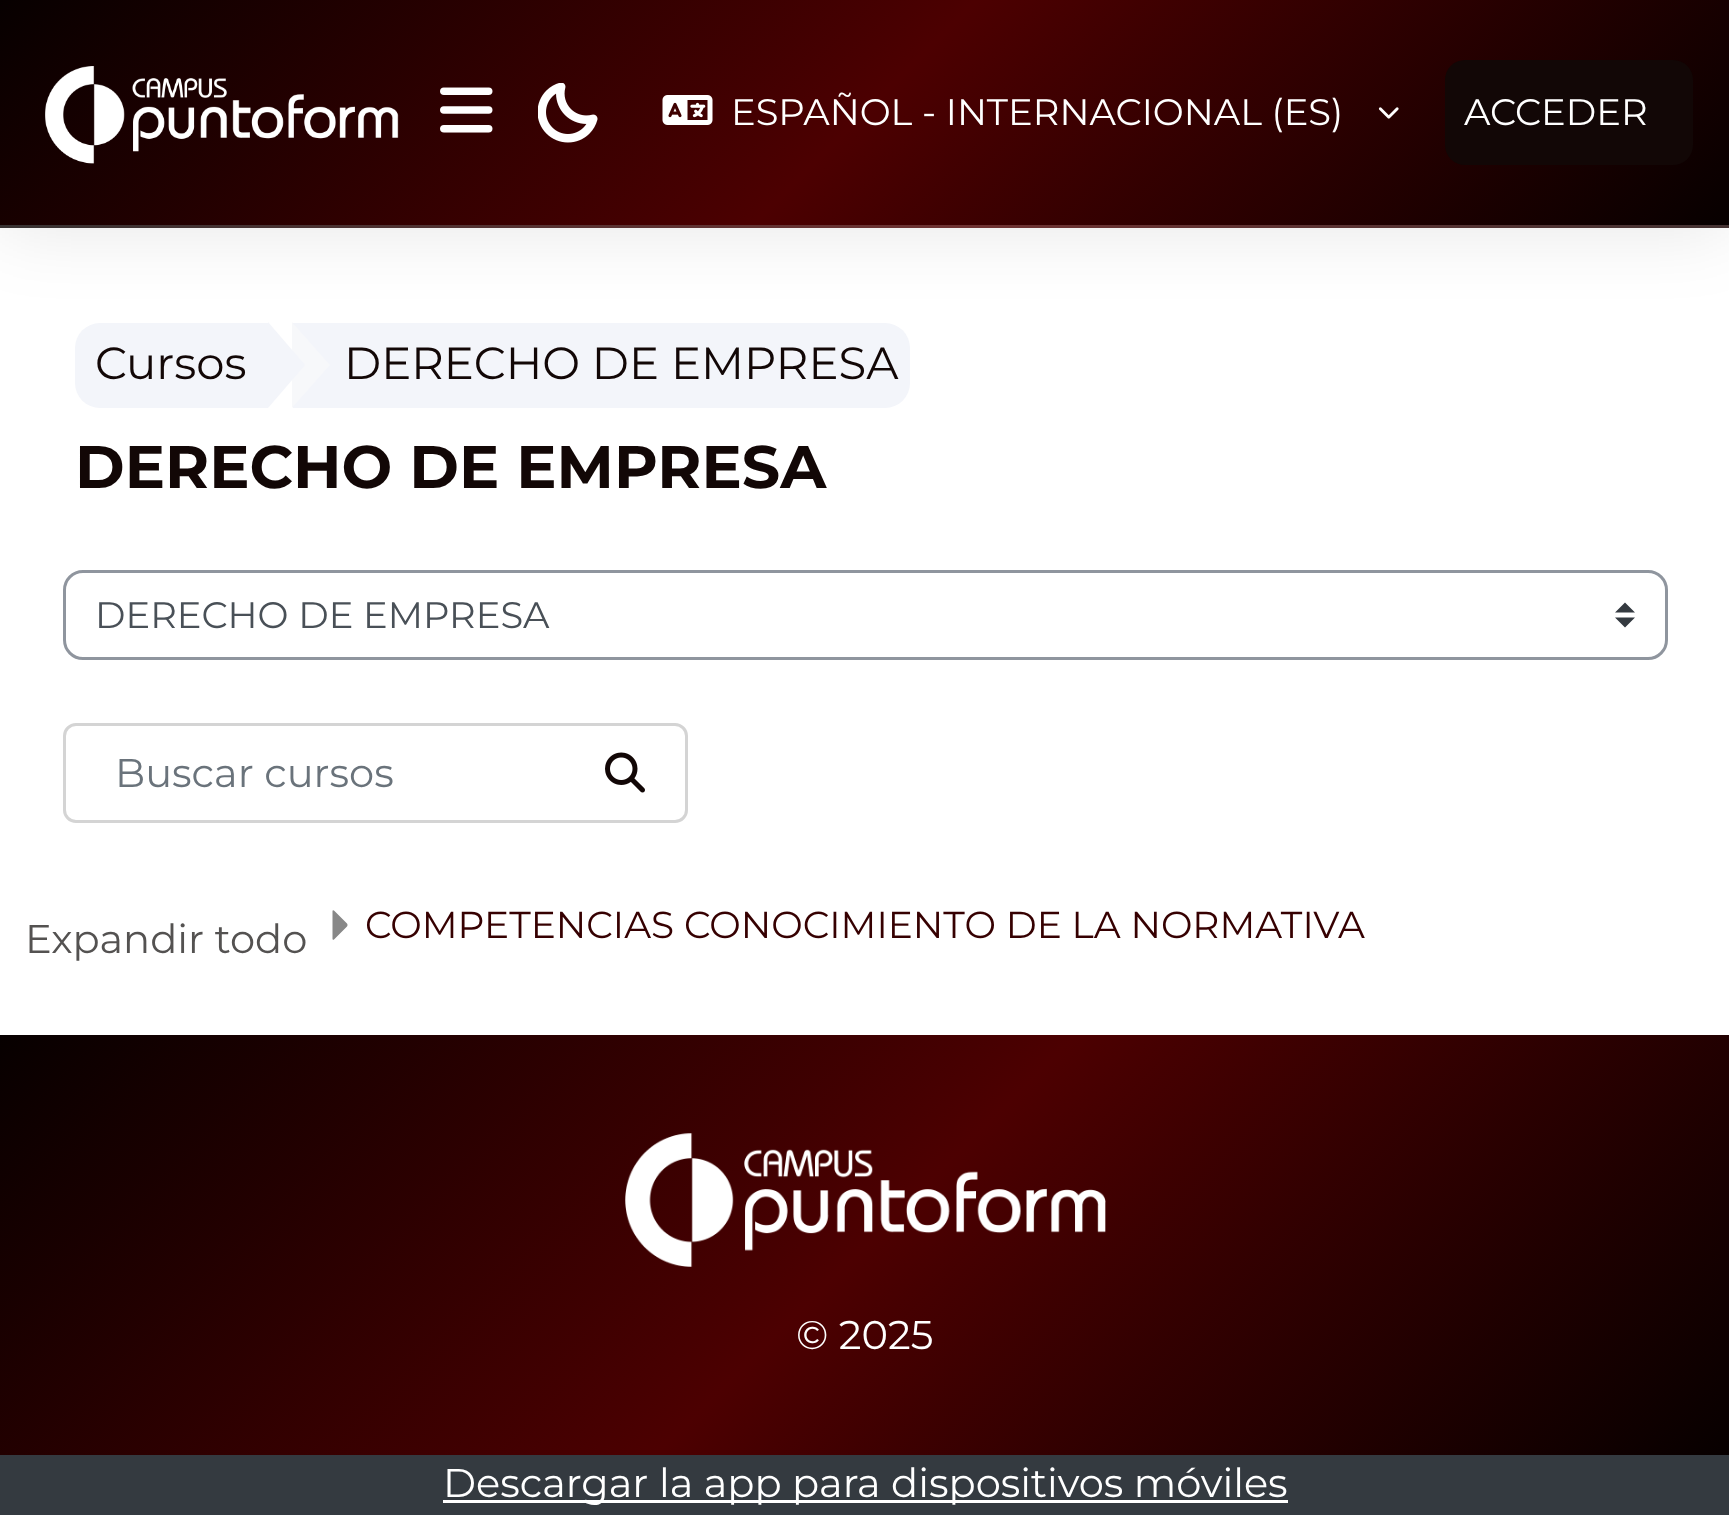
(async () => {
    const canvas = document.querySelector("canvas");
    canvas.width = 1729;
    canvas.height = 1518;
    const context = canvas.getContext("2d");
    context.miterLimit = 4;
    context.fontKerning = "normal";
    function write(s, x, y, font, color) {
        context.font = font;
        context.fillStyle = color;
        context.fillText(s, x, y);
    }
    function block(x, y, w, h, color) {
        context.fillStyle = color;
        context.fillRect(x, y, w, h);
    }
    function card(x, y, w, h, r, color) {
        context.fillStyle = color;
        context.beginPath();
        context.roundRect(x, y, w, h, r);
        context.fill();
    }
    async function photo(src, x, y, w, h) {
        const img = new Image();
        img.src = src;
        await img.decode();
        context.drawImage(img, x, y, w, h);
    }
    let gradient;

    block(0, 0, 1729, 1518, "rgb(255, 255, 255)");
    context.fillStyle = "rgb(243, 245, 250)";
    context.beginPath();
    context.roundRect(75, 323, 193, 85, [25, 0, 0, 25]);
    context.fill();
    context.beginPath();
    context.roundRect(293, 323, 617, 85, [0, 25, 25, 0]);
    context.fill();
    context.fillStyle = "rgb(247, 248, 250)";
    context.beginPath();
    context.moveTo(292, 408);
    context.lineTo(292, 322);
    context.lineTo(330, 365);
    context.closePath();
    context.fill();
    context.fillStyle = "rgb(243, 245, 250)";
    context.beginPath();
    context.moveTo(268, 408);
    context.lineTo(268, 322);
    context.lineTo(305, 365);
    context.closePath();
    context.fill();
    context.fillStyle = "rgba(0, 0, 0, 0.1)";
    context.filter = "blur(37.5px)";
    context.beginPath();
    context.rect(0, 0, 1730, 228);
    context.fill();
    context.filter = "none";
    gradient = context.createLinearGradient(376, -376, 1354, 601);
    gradient.addColorStop(0, "rgb(7, 0, 0)");
    gradient.addColorStop(0.5, "rgb(76, 0, 1)");
    gradient.addColorStop(1, "rgb(7, 0, 0)");
    context.fillStyle = gradient;
    context.fillRect(0, 0, 1729, 225);
    gradient = context.createLinearGradient(376, -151, 1354, 826);
    gradient.addColorStop(0, "rgb(7, 0, 0)");
    gradient.addColorStop(0.5, "rgb(76, 0, 1)");
    gradient.addColorStop(1, "rgb(7, 0, 0)");
    context.fillStyle = gradient;
    context.fillRect(0, 225, 1729, 3);
    block(0, 225, 1729, 3, "rgba(255, 255, 255, 0.2)");
    await photo("media/1.png", 45, 66, 354, 98);
    await photo("media/2.png", 440, 87, 53, 46);
    await photo("media/3.png", 538, 83, 60, 60);
    await photo("media/4.png", 662, 95, 51, 30);
    write("ESPAÑOL - INTERNACIONAL (ES)", 731, 125, "36.9px Montserrat", "rgb(255, 255, 255)");
    await photo("media/5.png", 1378, 107, 21, 12);
    card(1445, 60, 248, 105, 20, "rgb(18, 7, 6)");
    write("ACCEDER", 1464, 125, "36.9px Montserrat", "rgb(255, 255, 255)");
    write("Cursos", 95, 379, "45px Montserrat", "rgb(18, 7, 6)");
    write("DERECHO DE EMPRESA", 344, 379, "45px Montserrat", "rgb(18, 7, 6)");
    write("DERECHO DE EMPRESA", 75, 488, "bold 60.1px Montserrat", "rgb(18, 7, 6)");
    context.fillStyle = "rgb(52, 58, 64)";
    context.beginPath();
    context.moveTo(1625, 602.5);
    context.lineTo(1615, 612.5);
    context.lineTo(1635, 612.5);
    context.closePath();
    context.moveTo(1625, 627.5);
    context.lineTo(1615, 617.5);
    context.lineTo(1635, 617.5);
    context.closePath();
    context.fill();
    context.beginPath();
    context.roundRect(64.5, 571.5, 1602, 87, 18.5);
    context.strokeStyle = "rgb(143, 149, 158)";
    context.lineWidth = 3;
    context.stroke();
    write("DERECHO DE EMPRESA", 95, 628, "36.9px Montserrat", "rgb(73, 80, 87)");
    context.beginPath();
    context.roundRect(64.5, 724.5, 622, 97, 11.5);
    context.strokeStyle = "rgb(212, 212, 212)";
    context.stroke();
    write("Buscar cursos", 115, 787, "40px Montserrat", "rgb(106, 115, 123)");
    await photo("media/6.png", 605, 752, 40, 41);
    write("Expandir todo", 25, 953, "40px Montserrat", "rgb(84, 82, 81)");
    await photo("media/7.png", 332, 910, 16, 30);
    write("COMPETENCIAS CONOCIMIENTO DE LA NORMATIVA", 365, 938, "37.5px Montserrat", "rgb(54, 0, 1)");
    gradient = context.createLinearGradient(327, 708, 1403, 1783);
    gradient.addColorStop(0, "rgb(7, 0, 0)");
    gradient.addColorStop(0.5, "rgb(76, 0, 1)");
    gradient.addColorStop(1, "rgb(7, 0, 0)");
    context.fillStyle = gradient;
    context.fillRect(0, 1035, 1729, 420);
    await photo("media/8.png", 625, 1133, 481, 134);
    write("© 2025", 796, 1349, "40px Montserrat", "rgb(255, 255, 255)");
    block(0, 1455, 1729, 60, "rgb(52, 58, 64)");
    block(443, 1500, 845, 3, "rgb(255, 255, 255)");
    write("Descargar la app para dispositivos móviles", 443, 1497, "40px Montserrat", "rgb(255, 255, 255)");
})();
